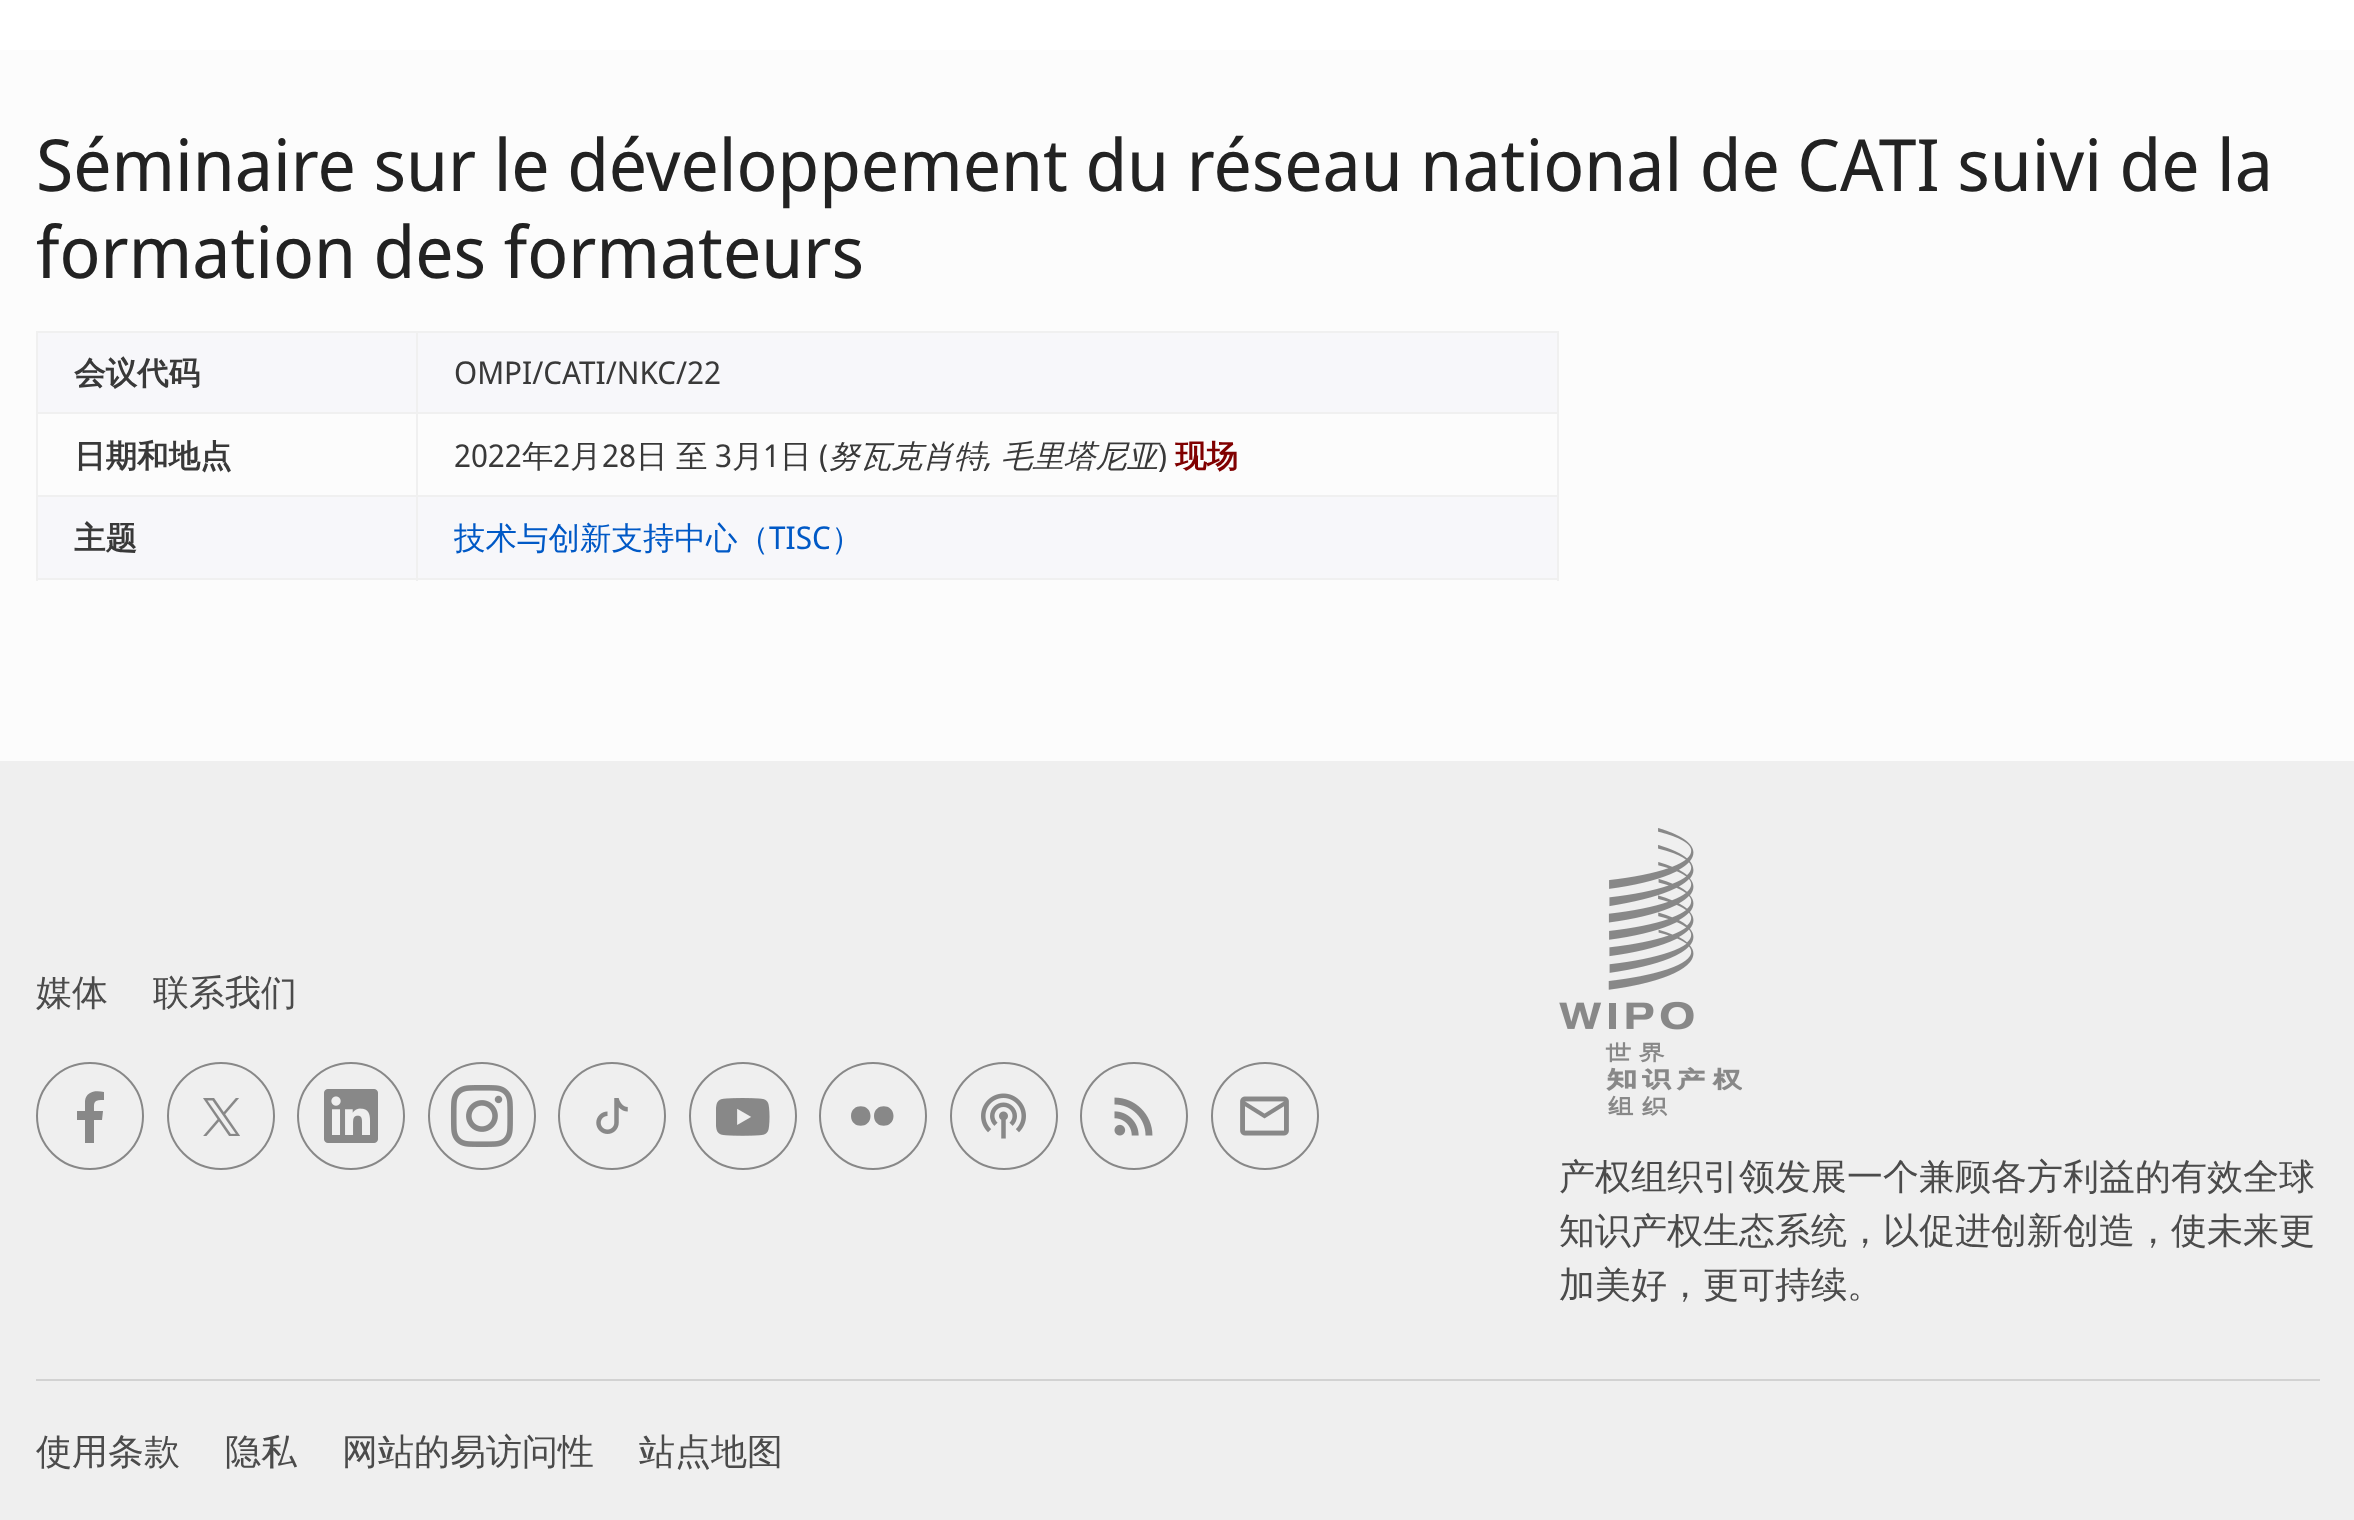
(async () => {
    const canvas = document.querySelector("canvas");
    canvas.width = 2354;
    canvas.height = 1520;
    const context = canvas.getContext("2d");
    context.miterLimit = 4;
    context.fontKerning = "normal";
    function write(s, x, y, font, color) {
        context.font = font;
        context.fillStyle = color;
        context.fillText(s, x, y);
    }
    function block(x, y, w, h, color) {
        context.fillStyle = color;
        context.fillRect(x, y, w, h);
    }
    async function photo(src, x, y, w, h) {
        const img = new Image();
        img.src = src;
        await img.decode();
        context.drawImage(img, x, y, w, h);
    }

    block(0, 0, 2354, 1520, "rgb(252, 252, 252)");
    block(0, 0, 2354, 50, "rgb(255, 255, 255)");
    write("Séminaire sur le développement du réseau national de CATI suivi de la", 36, 191, "72px Noto Sans Display", "rgb(34, 34, 34)");
    write("formation des formateurs", 36, 278, "72px Noto Sans Display", "rgb(34, 34, 34)");
    block(38, 333, 378, 79, "rgb(247, 247, 250)");
    block(416, 331, 1143, 2, "rgb(240, 240, 240)");
    block(416, 412, 1143, 2, "rgb(240, 240, 240)");
    block(416, 495, 1143, 2, "rgb(240, 240, 240)");
    block(1557, 495, 2, 86, "rgb(240, 240, 240)");
    block(416, 578, 1143, 2, "rgb(240, 240, 240)");
    block(416, 495, 2, 86, "rgb(240, 240, 240)");
    block(36, 495, 383, 2, "rgb(240, 240, 240)");
    block(416, 412, 2, 85, "rgb(240, 240, 240)");
    block(36, 412, 383, 2, "rgb(240, 240, 240)");
    block(416, 331, 2, 83, "rgb(240, 240, 240)");
    block(36, 331, 383, 2, "rgb(240, 240, 240)");
    block(36, 578, 383, 2, "rgb(240, 240, 240)");
    block(36, 495, 2, 86, "rgb(240, 240, 240)");
    block(36, 412, 2, 85, "rgb(240, 240, 240)");
    block(36, 331, 2, 83, "rgb(240, 240, 240)");
    write("会议代码", 74, 384, "bold 31.5px WenQuanYi Zen Hei", "rgb(57, 57, 57)");
    block(418, 333, 1139, 79, "rgb(247, 247, 250)");
    block(1557, 412, 2, 85, "rgb(240, 240, 240)");
    block(1557, 331, 2, 83, "rgb(240, 240, 240)");
    write("OMPI/CATI/NKC/22", 454, 384, "31.5px Noto Sans Display", "rgb(57, 57, 57)");
    write("日期和地点", 74, 467, "bold 31.5px WenQuanYi Zen Hei", "rgb(57, 57, 57)");
    write("2022", 454, 467, "31.5px Noto Sans Display", "rgb(57, 57, 57)");
    write("年", 522, 467, "500 31.5px WenQuanYi Zen Hei", "rgb(57, 57, 57)");
    write("2", 553, 467, "31.5px Noto Sans Display", "rgb(57, 57, 57)");
    write("月", 570, 467, "500 31.5px WenQuanYi Zen Hei", "rgb(57, 57, 57)");
    write("28", 602, 467, "31.5px Noto Sans Display", "rgb(57, 57, 57)");
    context.wordSpacing = "-1px";
    write("日 至", 636, 467, "500 31.5px WenQuanYi Zen Hei", "rgb(57, 57, 57)");
    context.wordSpacing = "0px";
    write("3", 715, 467, "31.5px Noto Sans Display", "rgb(57, 57, 57)");
    write("月", 732, 467, "500 31.5px WenQuanYi Zen Hei", "rgb(57, 57, 57)");
    write("1", 763, 467, "31.5px Noto Sans Display", "rgb(57, 57, 57)");
    write("日", 780, 467, "500 31.5px WenQuanYi Zen Hei", "rgb(57, 57, 57)");
    write("(", 819, 467, "31.5px Noto Sans Display", "rgb(57, 57, 57)");
    write("努瓦克肖特", 828, 467, "italic 500 31.5px WenQuanYi Zen Hei", "rgb(57, 57, 57)");
    write("毛里塔尼亚", 1001, 467, "italic 500 31.5px WenQuanYi Zen Hei", "rgb(57, 57, 57)");
    write(")", 1158, 467, "31.5px Noto Sans Display", "rgb(57, 57, 57)");
    write("现场", 1175, 467, "bold 31.5px WenQuanYi Zen Hei", "rgb(128, 0, 0)");
    write(",", 985, 467, "italic 31.5px Noto Sans Display", "rgb(57, 57, 57)");
    block(38, 497, 378, 81, "rgb(247, 247, 250)");
    write("主题", 74, 549, "bold 31.5px WenQuanYi Zen Hei", "rgb(57, 57, 57)");
    block(418, 497, 1139, 81, "rgb(247, 247, 250)");
    write("技术与创新支持中心（", 454, 549, "500 31.5px WenQuanYi Zen Hei", "rgb(0, 89, 198)");
    write("TISC", 769, 549, "31.5px Noto Sans Display", "rgb(0, 89, 198)");
    write("）", 831, 549, "500 31.5px WenQuanYi Zen Hei", "rgb(0, 89, 198)");
    block(0, 761, 2354, 759, "rgb(239, 239, 239)");
    write("媒体", 36, 1005, "500 36px WenQuanYi Zen Hei", "rgb(75, 75, 75)");
    write("联系我们", 153, 1005, "500 36px WenQuanYi Zen Hei", "rgb(75, 75, 75)");
    context.beginPath();
    context.arc(90, 1116, 53, 0, Math.PI * 2);
    context.strokeStyle = "rgb(136, 136, 136)";
    context.lineWidth = 2;
    context.stroke();
    context.save();
    context.beginPath();
    context.rect(77, 1091, 27, 52);
    context.clip();
    context.fillStyle = "rgb(136, 136, 136)";
    context.beginPath();
    context.moveTo(102, 1120);
    context.lineTo(103, 1111);
    context.lineTo(94, 1111);
    context.bezierCurveTo(94, 1102, 93, 1100, 104, 1100);
    context.lineTo(104, 1092);
    context.bezierCurveTo(96, 1090, 86, 1091, 85, 1101);
    context.lineTo(85, 1111);
    context.lineTo(76, 1111);
    context.lineTo(76, 1120);
    context.lineTo(85, 1120);
    context.lineTo(85, 1143);
    context.bezierCurveTo(88, 1143, 91, 1143, 94, 1143);
    context.lineTo(94, 1120);
    context.closePath();
    context.fill();
    context.restore();
    context.beginPath();
    context.arc(221, 1116, 53, 0, Math.PI * 2);
    context.stroke();
    await photo("media/1.png", 203, 1098, 37, 38);
    context.beginPath();
    context.arc(351, 1116, 53, 0, Math.PI * 2);
    context.stroke();
    await photo("media/2.png", 324, 1089, 54, 54);
    context.beginPath();
    context.arc(482, 1116, 53, 0, Math.PI * 2);
    context.stroke();
    await photo("media/3.png", 450, 1085, 63, 62);
    context.beginPath();
    context.arc(612, 1116, 53, 0, Math.PI * 2);
    context.stroke();
    await photo("media/4.png", 596, 1098, 32, 36);
    context.beginPath();
    context.arc(743, 1116, 53, 0, Math.PI * 2);
    context.stroke();
    await photo("media/5.png", 716, 1098, 54, 38);
    context.beginPath();
    context.arc(873, 1116, 53, 0, Math.PI * 2);
    context.stroke();
    context.fillStyle = "rgb(136, 136, 136)";
    context.beginPath();
    context.moveTo(870.5, 1116);
    context.bezierCurveTo(870.5, 1129, 851, 1129, 851, 1116);
    context.bezierCurveTo(851, 1103, 870.5, 1103, 870.5, 1116);
    context.closePath();
    context.moveTo(893.5, 1116);
    context.bezierCurveTo(893.5, 1129, 874, 1129, 874, 1116);
    context.bezierCurveTo(874, 1103, 893.5, 1103, 893.5, 1116);
    context.closePath();
    context.fill();
    context.beginPath();
    context.arc(1004, 1116, 53, 0, Math.PI * 2);
    context.stroke();
    await photo("media/6.png", 981, 1093, 45, 46);
    context.beginPath();
    context.arc(1134, 1116, 53, 0, Math.PI * 2);
    context.stroke();
    await photo("media/7.png", 1114, 1097, 39, 39);
    context.beginPath();
    context.arc(1265, 1116, 53, 0, Math.PI * 2);
    context.stroke();
    await photo("media/8.png", 1240, 1096, 49, 40);
    await photo("media/9.png", 1559, 828, 183, 288);
    write("产权组织引领发展一个兼顾各方利益的有效全球", 1559, 1189, "500 36px WenQuanYi Zen Hei", "rgb(75, 75, 75)");
    write("知识产权生态系统，以促进创新创造，使未来更", 1559, 1243, "500 36px WenQuanYi Zen Hei", "rgb(75, 75, 75)");
    write("加美好，更可持续。", 1559, 1297, "500 36px WenQuanYi Zen Hei", "rgb(75, 75, 75)");
    block(36, 1379, 2284, 2, "rgb(210, 210, 210)");
    write("使用条款", 36, 1464, "500 36px WenQuanYi Zen Hei", "rgb(75, 75, 75)");
    write("隐私", 225, 1464, "500 36px WenQuanYi Zen Hei", "rgb(75, 75, 75)");
    write("网站的易访问性", 342, 1464, "500 36px WenQuanYi Zen Hei", "rgb(75, 75, 75)");
    write("站点地图", 639, 1464, "500 36px WenQuanYi Zen Hei", "rgb(75, 75, 75)");
})();
